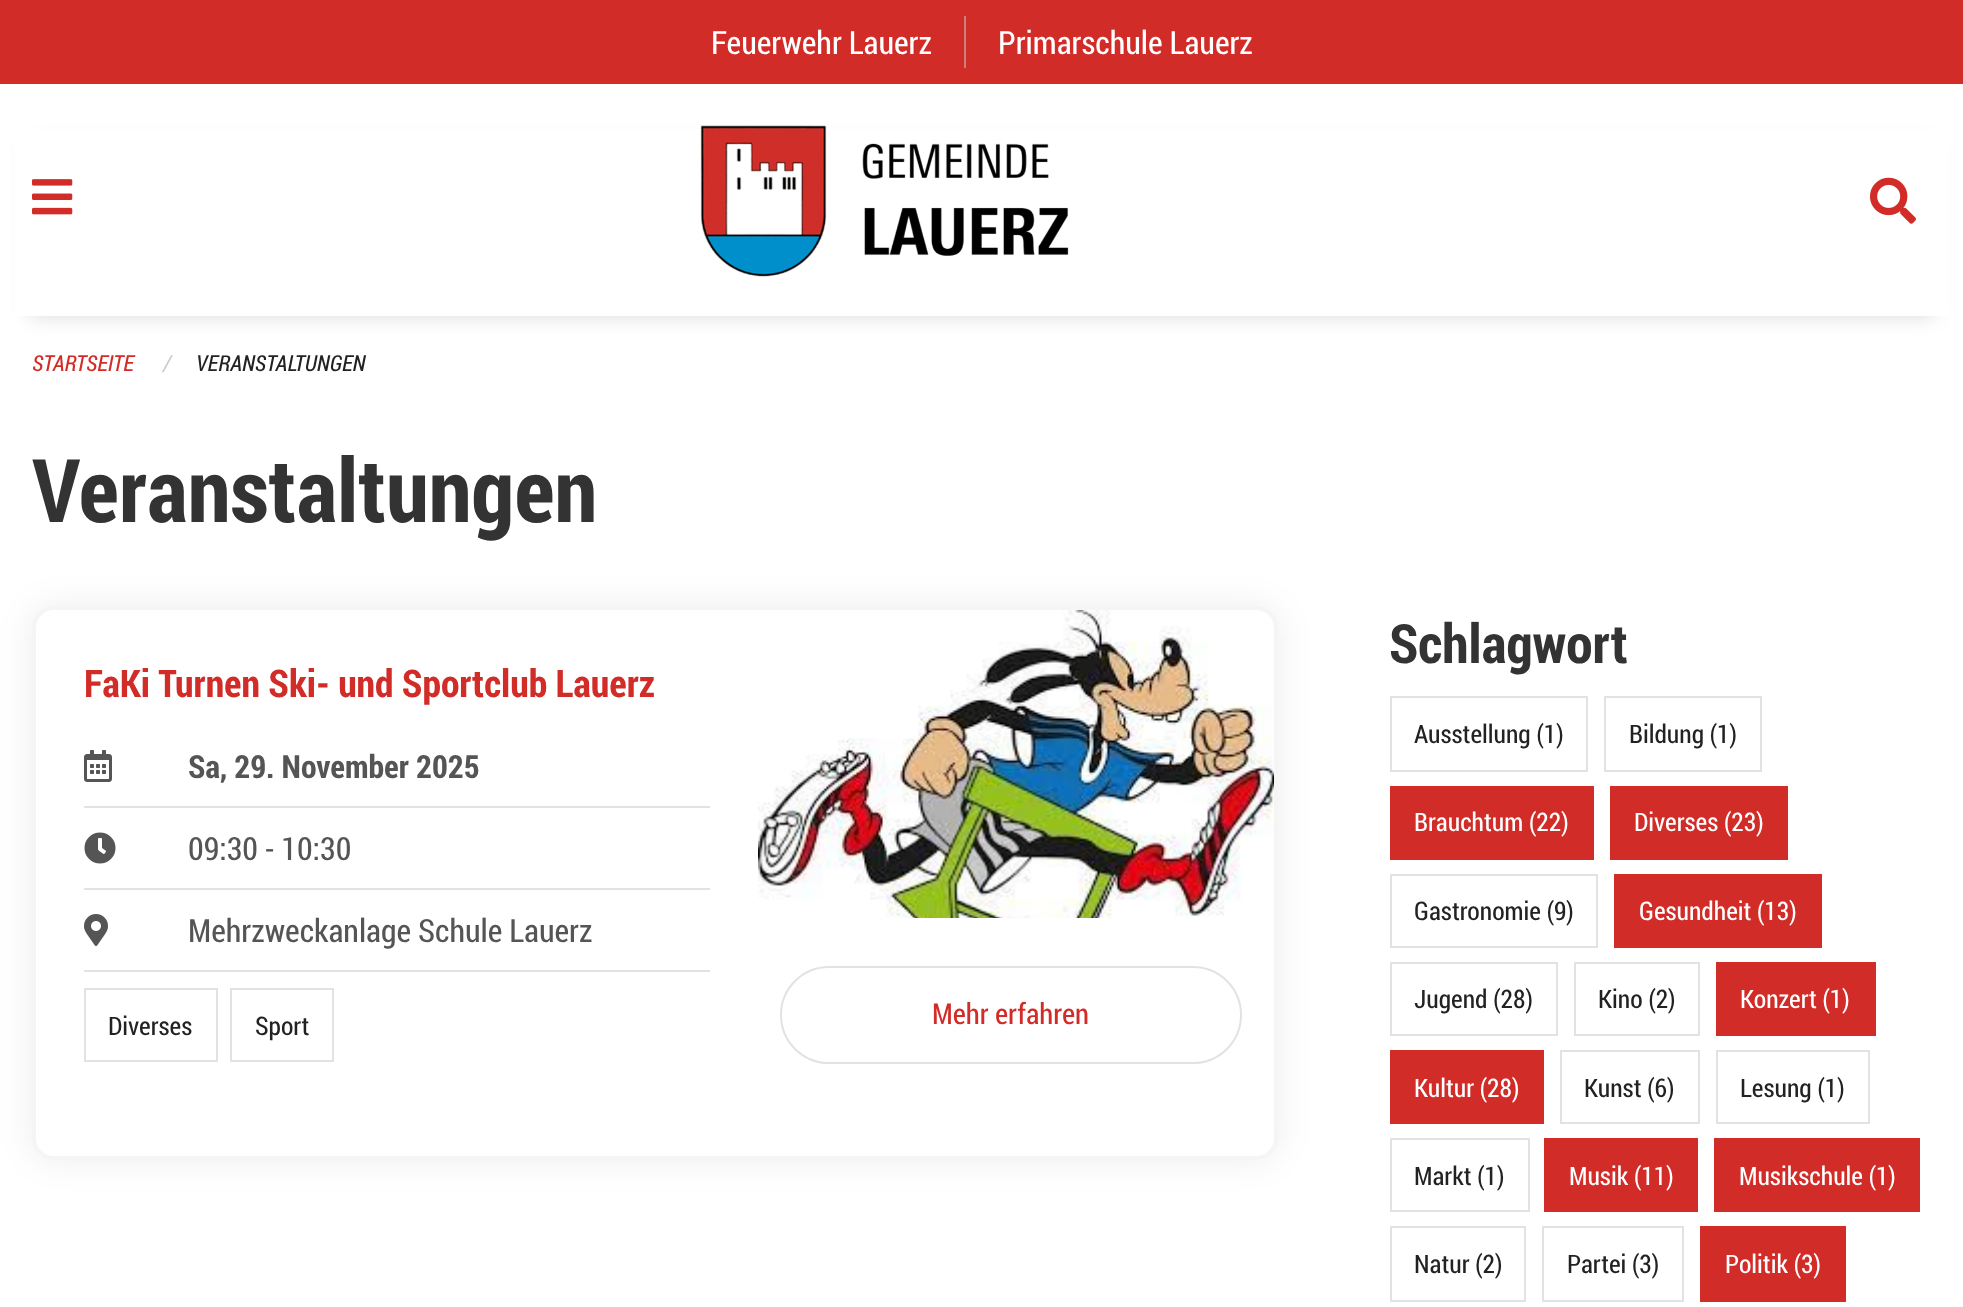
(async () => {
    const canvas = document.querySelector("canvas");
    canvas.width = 1963;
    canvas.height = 1307;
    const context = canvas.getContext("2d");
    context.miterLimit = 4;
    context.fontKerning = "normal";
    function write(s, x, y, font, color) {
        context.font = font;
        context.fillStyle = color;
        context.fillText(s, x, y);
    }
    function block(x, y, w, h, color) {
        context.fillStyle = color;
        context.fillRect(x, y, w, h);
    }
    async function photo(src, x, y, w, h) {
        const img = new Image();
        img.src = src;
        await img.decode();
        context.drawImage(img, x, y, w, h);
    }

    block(0, 0, 1963, 1307, "rgb(255, 255, 255)");
    block(0, 0, 1963, 84, "rgb(210, 44, 40)");
    write("Feuerwehr Lauerz", 711, 54, "32px Roboto Condensed", "rgb(255, 255, 255)");
    block(964, 16, 2, 52, "rgb(201, 129, 127)");
    write("Primarschule Lauerz", 998, 54, "32px Roboto Condensed", "rgb(255, 255, 255)");
    context.fillStyle = "rgba(0, 0, 0, 0.15)";
    context.filter = "blur(10px)";
    context.beginPath();
    context.rect(30, 144, 1904, 172);
    context.fill();
    context.filter = "none";
    block(15, 129, 1934, 187, "rgb(255, 255, 255)");
    await photo("media/1.png", 32, 179, 41, 36);
    await photo("media/2.png", 700, 125, 369, 152);
    await photo("media/3.png", 1870, 177, 46, 47);
    write("STARTSEITE", 32, 371, "italic 22px Roboto Condensed", "rgb(210, 44, 40)");
    write("/", 163, 371, "italic 22px Roboto", "rgb(202, 202, 202)");
    write("VERANSTALTUNGEN", 196, 371, "italic 22px Roboto Condensed", "rgb(34, 34, 34)");
    write("Veranstaltungen", 32, 522, "bold 88px Roboto Condensed", "rgb(51, 51, 51)");
    context.fillStyle = "rgba(0, 0, 0, 0.07)";
    context.filter = "blur(17px)";
    context.beginPath();
    context.roundRect(32, 606, 1246, 554, 22);
    context.fill();
    context.filter = "none";
    context.fillStyle = "rgb(255, 255, 255)";
    context.beginPath();
    context.roundRect(34, 608, 1242, 550, 20);
    context.fill();
    context.strokeStyle = "rgb(245, 245, 245)";
    context.lineWidth = 4;
    context.stroke();
    write("FaKi Turnen Ski- und Sportclub Lauerz", 84, 697, "bold 38px Roboto Condensed", "rgb(210, 44, 40)");
    await photo("media/4.png", 84, 750, 28, 32);
    write("Sa, 29. November 2025", 188, 778, "bold 32px Roboto Condensed", "rgb(85, 85, 85)");
    block(84, 806, 626, 2, "rgb(224, 227, 229)");
    await photo("media/5.png", 84, 832, 32, 32);
    write("09:30 - 10:30", 188, 860, "32px Roboto Condensed", "rgb(85, 85, 85)");
    block(84, 888, 626, 2, "rgb(224, 227, 229)");
    await photo("media/6.png", 84, 914, 24, 32);
    write("Mehrzweckanlage Schule Lauerz", 188, 942, "32px Roboto Condensed", "rgb(85, 85, 85)");
    block(84, 970, 626, 2, "rgb(224, 227, 229)");
    context.strokeStyle = "rgb(224, 227, 229)";
    context.lineWidth = 2;
    context.strokeRect(85, 989, 132, 72);
    write("Diverses", 108, 1035, "25.5px Roboto Condensed", "rgb(34, 34, 34)");
    context.strokeRect(231, 989, 102, 72);
    write("Sport", 255, 1035, "25.5px Roboto Condensed", "rgb(34, 34, 34)");
    await photo("media/7.png", 758, 610, 516, 308);
    context.beginPath();
    context.roundRect(781, 967, 460, 96, 48);
    context.stroke();
    write("Mehr erfahren", 932, 1024, "28.75px Roboto Condensed", "rgb(210, 44, 40)");
    write("Schlagwort", 1389, 663, "bold 54px Roboto Condensed", "rgb(51, 51, 51)");
    context.strokeRect(1391, 697, 196, 74);
    write("Ausstellung (1)", 1414, 743, "25.5px Roboto Condensed", "rgb(34, 34, 34)");
    context.strokeRect(1605, 697, 156, 74);
    write("Bildung (1)", 1629, 743, "25.5px Roboto Condensed", "rgb(34, 34, 34)");
    block(1390, 786, 204, 74, "rgb(210, 44, 40)");
    write("Brauchtum (22)", 1414, 831, "25.5px Roboto Condensed", "rgb(255, 255, 255)");
    block(1610, 786, 178, 74, "rgb(210, 44, 40)");
    write("Diverses (23)", 1634, 831, "25.5px Roboto Condensed", "rgb(255, 255, 255)");
    context.strokeRect(1391, 875, 206, 72);
    write("Gastronomie (9)", 1414, 920, "25.5px Roboto Condensed", "rgb(34, 34, 34)");
    block(1614, 874, 208, 74, "rgb(210, 44, 40)");
    write("Gesundheit (13)", 1639, 920, "25.5px Roboto Condensed", "rgb(255, 255, 255)");
    context.strokeRect(1391, 963, 166, 72);
    write("Jugend (28)", 1414, 1008, "25.5px Roboto Condensed", "rgb(34, 34, 34)");
    context.strokeRect(1575, 963, 124, 72);
    write("Kino (2)", 1598, 1008, "25.5px Roboto Condensed", "rgb(34, 34, 34)");
    block(1716, 962, 160, 74, "rgb(210, 44, 40)");
    write("Konzert (1)", 1740, 1008, "25.5px Roboto Condensed", "rgb(255, 255, 255)");
    block(1390, 1050, 154, 74, "rgb(210, 44, 40)");
    write("Kultur (28)", 1414, 1097, "25.5px Roboto Condensed", "rgb(255, 255, 255)");
    context.strokeRect(1561, 1051, 138, 72);
    write("Kunst (6)", 1584, 1097, "25.5px Roboto Condensed", "rgb(34, 34, 34)");
    context.strokeRect(1717, 1051, 152, 72);
    write("Lesung (1)", 1740, 1097, "25.5px Roboto Condensed", "rgb(34, 34, 34)");
    context.strokeRect(1391, 1139, 138, 72);
    write("Markt (1)", 1414, 1185, "25.5px Roboto Condensed", "rgb(34, 34, 34)");
    block(1544, 1138, 154, 74, "rgb(210, 44, 40)");
    write("Musik (11)", 1569, 1185, "25.5px Roboto Condensed", "rgb(255, 255, 255)");
    block(1714, 1138, 206, 74, "rgb(210, 44, 40)");
    write("Musikschule (1)", 1739, 1185, "25.5px Roboto Condensed", "rgb(255, 255, 255)");
    context.strokeRect(1391, 1227, 134, 74);
    write("Natur (2)", 1414, 1273, "25.5px Roboto Condensed", "rgb(34, 34, 34)");
    context.strokeRect(1543, 1227, 140, 74);
    write("Partei (3)", 1567, 1273, "25.5px Roboto Condensed", "rgb(34, 34, 34)");
    block(1700, 1226, 146, 76, "rgb(210, 44, 40)");
    write("Politik (3)", 1725, 1273, "25.5px Roboto Condensed", "rgb(255, 255, 255)");
})();
